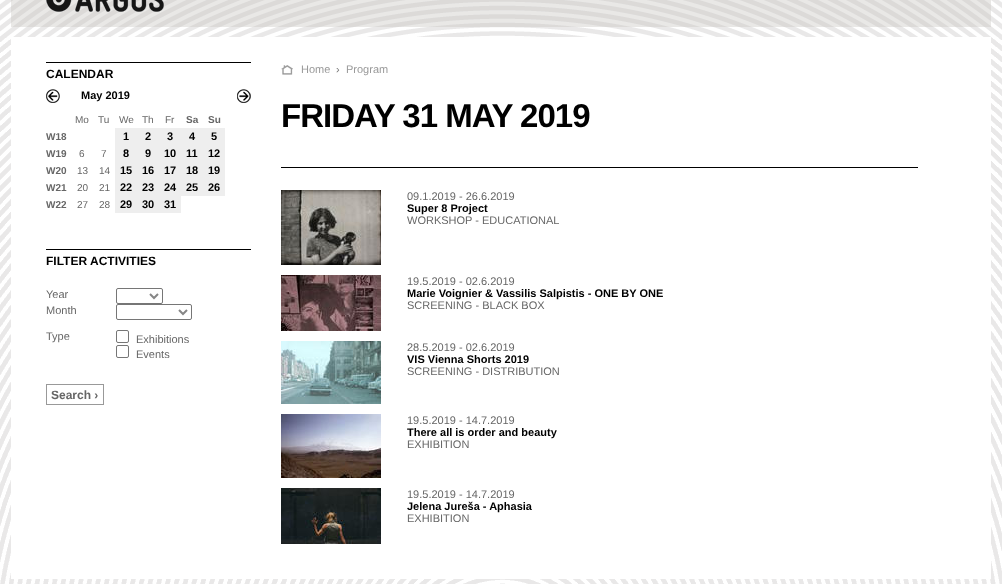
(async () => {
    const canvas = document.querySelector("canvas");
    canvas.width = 1002;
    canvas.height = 584;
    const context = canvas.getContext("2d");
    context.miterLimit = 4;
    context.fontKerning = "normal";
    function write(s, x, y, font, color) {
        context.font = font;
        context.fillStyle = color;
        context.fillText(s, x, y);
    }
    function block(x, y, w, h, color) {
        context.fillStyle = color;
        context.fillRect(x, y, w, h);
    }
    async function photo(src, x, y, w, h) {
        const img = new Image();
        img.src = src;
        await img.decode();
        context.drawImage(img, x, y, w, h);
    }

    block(0, 0, 1002, 584, "rgb(255, 255, 255)");
    await photo("media/1.png", 0, 37, 1002, 547);
    await photo("media/2.png", 0, 0, 1002, 37);
    await photo("media/3.png", 46, 0, 118, 12);
    block(11, 37, 980, 542, "rgb(255, 255, 255)");
    block(46, 62, 205, 1, "rgb(0, 0, 0)");
    write("CALENDAR", 46, 78, "bold 12px Liberation Sans", "rgb(0, 0, 0)");
    await photo("media/4.png", 46, 89, 14, 14);
    write("May 2019", 81, 99, "bold 11px Liberation Sans", "rgb(0, 0, 0)");
    await photo("media/5.png", 237, 89, 14, 14);
    write("Mo", 75, 123, "10px Liberation Sans", "rgb(102, 102, 102)");
    write("Tu", 98, 123, "10px Liberation Sans", "rgb(102, 102, 102)");
    write("We", 119, 123, "10px Liberation Sans", "rgb(102, 102, 102)");
    write("Th", 142, 123, "10px Liberation Sans", "rgb(102, 102, 102)");
    write("Fr", 165, 123, "10px Liberation Sans", "rgb(102, 102, 102)");
    write("Sa", 186, 123, "bold 10px Liberation Sans", "rgb(102, 102, 102)");
    write("Su", 208, 123, "bold 10px Liberation Sans", "rgb(102, 102, 102)");
    write("W18", 46, 140, "bold 10px Liberation Sans", "rgb(102, 102, 102)");
    block(115, 128, 110, 17, "rgb(238, 238, 238)");
    write("1", 123, 140, "bold 11px Liberation Sans", "rgb(0, 0, 0)");
    write("2", 145, 140, "bold 11px Liberation Sans", "rgb(0, 0, 0)");
    write("3", 167, 140, "bold 11px Liberation Sans", "rgb(0, 0, 0)");
    write("4", 189, 140, "bold 11px Liberation Sans", "rgb(0, 0, 0)");
    write("5", 211, 140, "bold 11px Liberation Sans", "rgb(0, 0, 0)");
    write("W19", 46, 157, "bold 10px Liberation Sans", "rgb(102, 102, 102)");
    write("6", 79, 157, "10px Liberation Sans", "rgb(102, 102, 102)");
    write("7", 101, 157, "10px Liberation Sans", "rgb(102, 102, 102)");
    block(115, 145, 110, 17, "rgb(238, 238, 238)");
    write("8", 123, 157, "bold 11px Liberation Sans", "rgb(0, 0, 0)");
    write("9", 145, 157, "bold 11px Liberation Sans", "rgb(0, 0, 0)");
    write("10", 164, 157, "bold 11px Liberation Sans", "rgb(0, 0, 0)");
    write("11", 186, 157, "bold 11px Liberation Sans", "rgb(0, 0, 0)");
    write("12", 208, 157, "bold 11px Liberation Sans", "rgb(0, 0, 0)");
    write("W20", 46, 174, "bold 10px Liberation Sans", "rgb(102, 102, 102)");
    write("13", 77, 174, "10px Liberation Sans", "rgb(102, 102, 102)");
    write("14", 99, 174, "10px Liberation Sans", "rgb(102, 102, 102)");
    block(115, 162, 110, 17, "rgb(238, 238, 238)");
    write("15", 120, 174, "bold 11px Liberation Sans", "rgb(0, 0, 0)");
    write("16", 142, 174, "bold 11px Liberation Sans", "rgb(0, 0, 0)");
    write("17", 164, 174, "bold 11px Liberation Sans", "rgb(0, 0, 0)");
    write("18", 186, 174, "bold 11px Liberation Sans", "rgb(0, 0, 0)");
    write("19", 208, 174, "bold 11px Liberation Sans", "rgb(0, 0, 0)");
    write("W21", 46, 191, "bold 10px Liberation Sans", "rgb(102, 102, 102)");
    write("20", 77, 191, "10px Liberation Sans", "rgb(102, 102, 102)");
    write("21", 99, 191, "10px Liberation Sans", "rgb(102, 102, 102)");
    block(115, 179, 110, 17, "rgb(238, 238, 238)");
    write("22", 120, 191, "bold 11px Liberation Sans", "rgb(0, 0, 0)");
    write("23", 142, 191, "bold 11px Liberation Sans", "rgb(0, 0, 0)");
    write("24", 164, 191, "bold 11px Liberation Sans", "rgb(0, 0, 0)");
    write("25", 186, 191, "bold 11px Liberation Sans", "rgb(0, 0, 0)");
    write("26", 208, 191, "bold 11px Liberation Sans", "rgb(0, 0, 0)");
    write("W22", 46, 208, "bold 10px Liberation Sans", "rgb(102, 102, 102)");
    write("27", 77, 208, "10px Liberation Sans", "rgb(102, 102, 102)");
    write("28", 99, 208, "10px Liberation Sans", "rgb(102, 102, 102)");
    block(115, 196, 66, 17, "rgb(238, 238, 238)");
    write("29", 120, 208, "bold 11px Liberation Sans", "rgb(0, 0, 0)");
    write("30", 142, 208, "bold 11px Liberation Sans", "rgb(0, 0, 0)");
    write("31", 164, 208, "bold 11px Liberation Sans", "rgb(0, 0, 0)");
    block(46, 249, 205, 1, "rgb(0, 0, 0)");
    write("FILTER ACTIVITIES", 46, 265, "bold 12px Liberation Sans", "rgb(0, 0, 0)");
    write("Year", 46, 298, "11px Liberation Sans", "rgb(102, 102, 102)");
    context.beginPath();
    context.roundRect(116.5, 288.5, 46, 15, 1.5);
    context.strokeStyle = "rgb(118, 118, 118)";
    context.stroke();
    context.beginPath();
    context.moveTo(150, 294);
    context.lineTo(154, 298);
    context.lineTo(158, 294);
    context.strokeStyle = "rgb(134, 134, 134)";
    context.lineWidth = 2;
    context.stroke();
    write("Month", 46, 314, "11px Liberation Sans", "rgb(102, 102, 102)");
    context.beginPath();
    context.roundRect(116.5, 304.5, 75, 15, 1.5);
    context.strokeStyle = "rgb(118, 118, 118)";
    context.lineWidth = 1;
    context.stroke();
    context.beginPath();
    context.moveTo(179, 310);
    context.lineTo(183, 314);
    context.lineTo(187, 310);
    context.strokeStyle = "rgb(134, 134, 134)";
    context.lineWidth = 2;
    context.stroke();
    write("Type", 46, 340, "11px Liberation Sans", "rgb(102, 102, 102)");
    context.beginPath();
    context.roundRect(116.5, 330.5, 12, 12, 1.5);
    context.strokeStyle = "rgb(118, 118, 118)";
    context.lineWidth = 1;
    context.stroke();
    write("Exhibitions", 136, 343, "11px Liberation Sans", "rgb(102, 102, 102)");
    context.beginPath();
    context.roundRect(116.5, 345.5, 12, 12, 1.5);
    context.stroke();
    write("Events", 136, 358, "11px Liberation Sans", "rgb(102, 102, 102)");
    context.strokeStyle = "rgb(153, 153, 153)";
    context.strokeRect(46.5, 384.5, 57, 20);
    write("Search ›", 51, 399, "bold 12px Liberation Sans", "rgb(102, 102, 102)");
    await photo("media/6.png", 281, 65, 12, 10);
    write("Home", 301, 73, "11px Liberation Sans", "rgb(153, 153, 153)");
    write("›", 336, 73, "11px Liberation Sans", "rgb(119, 119, 119)");
    write("Program", 346, 73, "11px Liberation Sans", "rgb(153, 153, 153)");
    context.letterSpacing = "-1px";
    write("FRIDAY 31 MAY 2019", 281, 127, "bold 33px Liberation Sans", "rgb(0, 0, 0)");
    block(281, 167, 637, 1, "rgb(0, 0, 0)");
    await photo("media/7.png", 281, 190, 100, 75);
    context.letterSpacing = "0px";
    write("09.1.2019 - 26.6.2019", 407, 200, "11px Liberation Sans", "rgb(102, 102, 102)");
    write("Super 8 Project", 407, 212, "bold 11px Liberation Sans", "rgb(0, 0, 0)");
    write("WORKSHOP - EDUCATIONAL", 407, 224, "11px Liberation Sans", "rgb(102, 102, 102)");
    await photo("media/8.png", 281, 275, 100, 56);
    write("19.5.2019 - 02.6.2019", 407, 285, "11px Liberation Sans", "rgb(102, 102, 102)");
    write("Marie Voignier & Vassilis Salpistis - ONE BY ONE", 407, 297, "bold 11px Liberation Sans", "rgb(0, 0, 0)");
    write("SCREENING - BLACK BOX", 407, 309, "11px Liberation Sans", "rgb(102, 102, 102)");
    await photo("media/9.png", 281, 341, 100, 63);
    write("28.5.2019 - 02.6.2019", 407, 351, "11px Liberation Sans", "rgb(102, 102, 102)");
    write("VIS Vienna Shorts 2019", 407, 363, "bold 11px Liberation Sans", "rgb(0, 0, 0)");
    write("SCREENING - DISTRIBUTION", 407, 375, "11px Liberation Sans", "rgb(102, 102, 102)");
    await photo("media/10.png", 281, 414, 100, 64);
    write("19.5.2019 - 14.7.2019", 407, 424, "11px Liberation Sans", "rgb(102, 102, 102)");
    write("There all is order and beauty", 407, 436, "bold 11px Liberation Sans", "rgb(0, 0, 0)");
    write("EXHIBITION", 407, 448, "11px Liberation Sans", "rgb(102, 102, 102)");
    await photo("media/11.png", 281, 488, 100, 56);
    write("19.5.2019 - 14.7.2019", 407, 498, "11px Liberation Sans", "rgb(102, 102, 102)");
    write("Jelena Jureša - Aphasia", 407, 510, "bold 11px Liberation Sans", "rgb(0, 0, 0)");
    write("EXHIBITION", 407, 522, "11px Liberation Sans", "rgb(102, 102, 102)");
})();
